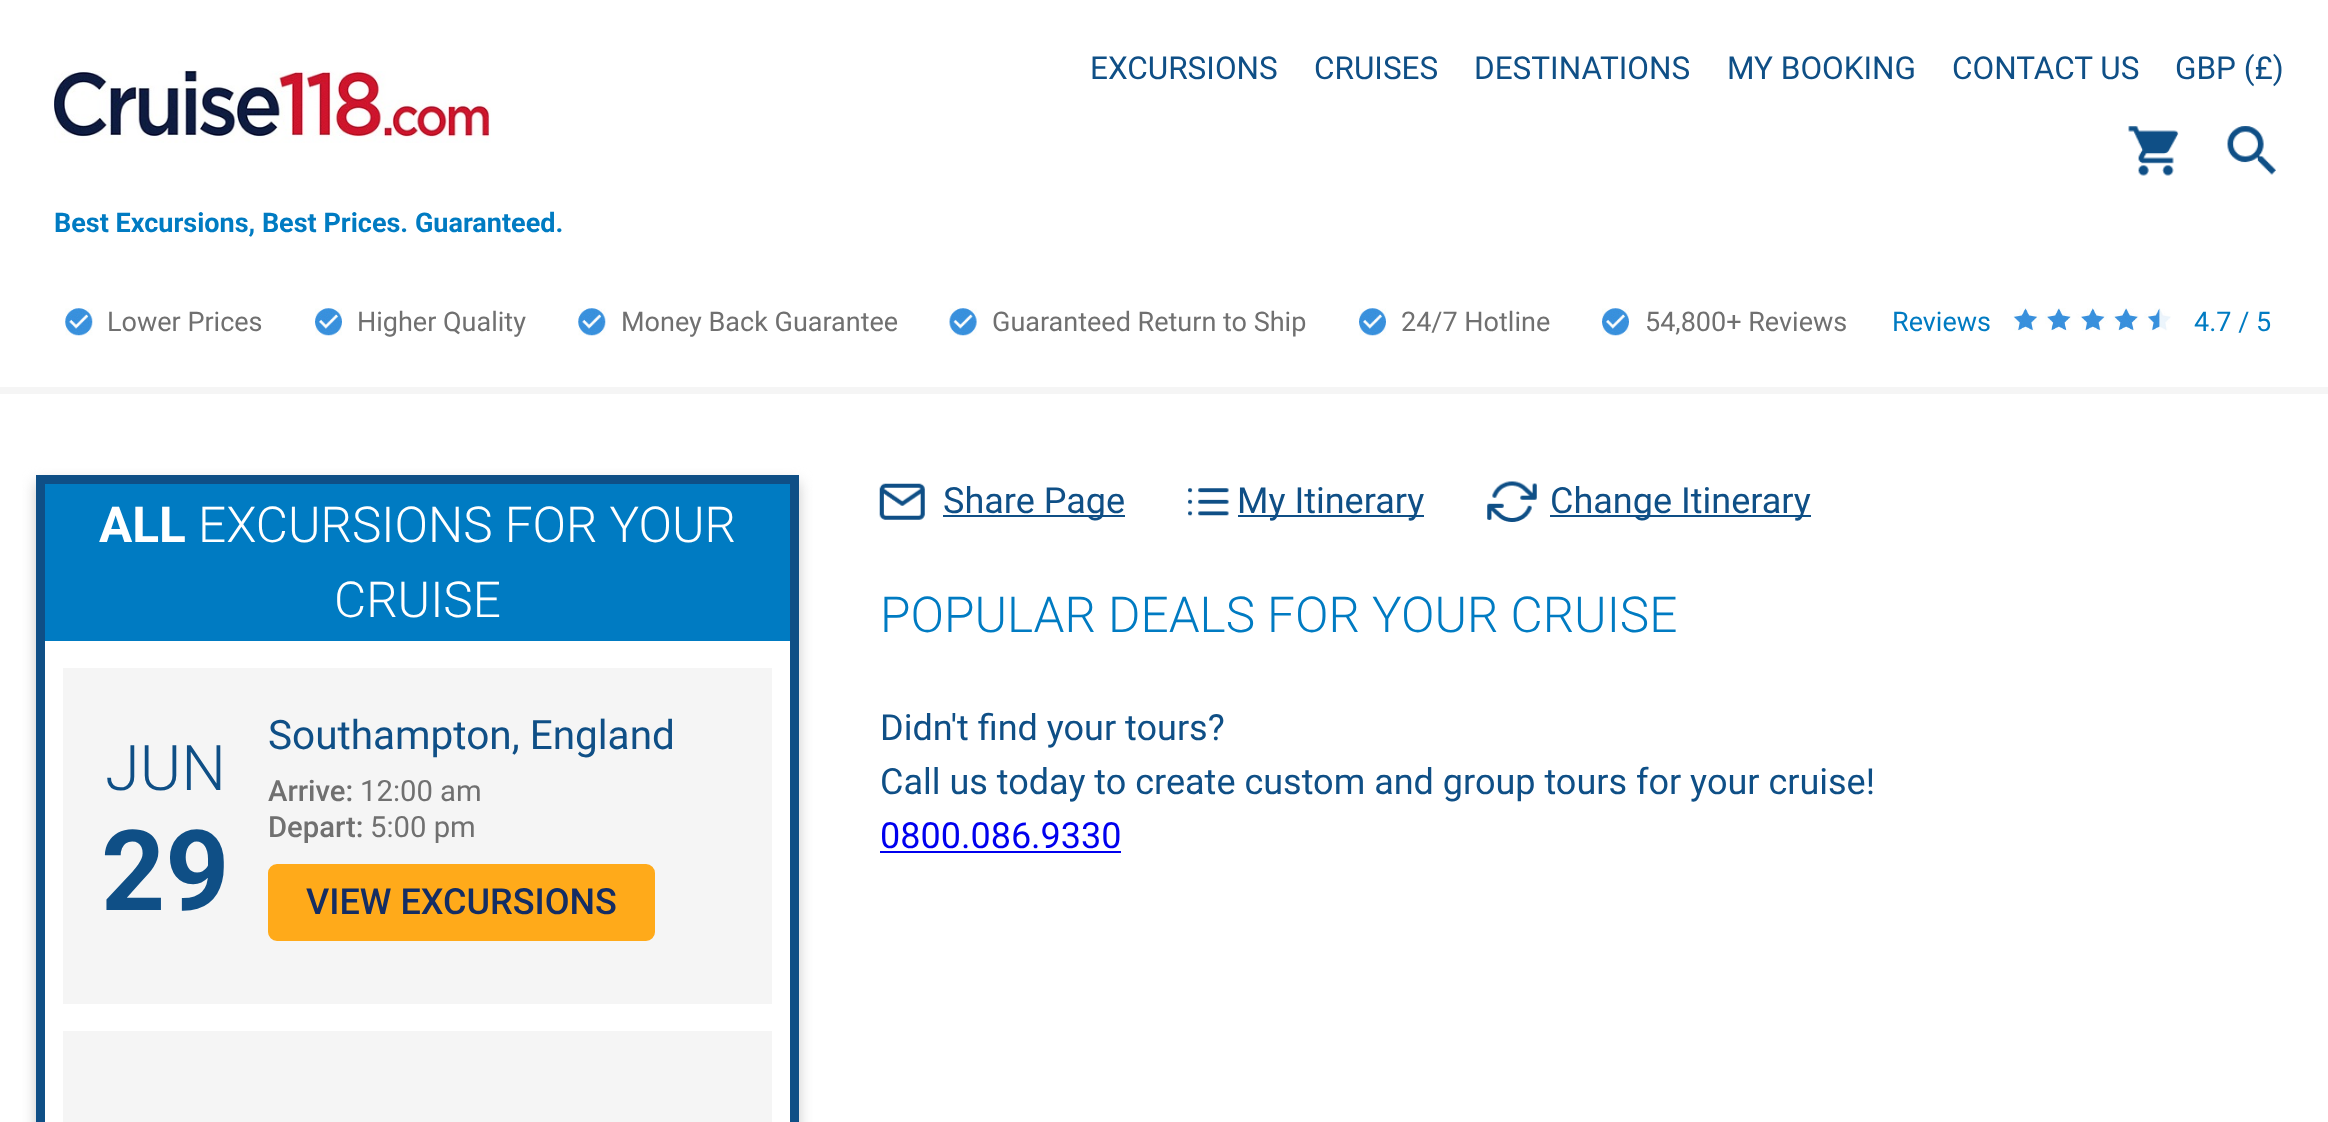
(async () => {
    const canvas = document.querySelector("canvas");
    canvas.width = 2328;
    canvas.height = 1122;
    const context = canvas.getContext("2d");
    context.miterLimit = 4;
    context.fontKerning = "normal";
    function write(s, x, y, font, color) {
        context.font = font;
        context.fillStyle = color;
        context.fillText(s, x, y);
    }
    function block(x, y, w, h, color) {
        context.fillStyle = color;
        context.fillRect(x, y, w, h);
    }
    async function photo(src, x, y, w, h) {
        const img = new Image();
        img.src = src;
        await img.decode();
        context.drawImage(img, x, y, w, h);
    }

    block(0, 0, 2328, 1122, "rgb(255, 255, 255)");
    write("EXCURSIONS", 1090, 79, "31.5px Roboto", "rgb(15, 79, 134)");
    write("CRUISES", 1314, 79, "31.5px Roboto", "rgb(15, 79, 134)");
    write("DESTINATIONS", 1474, 79, "31.5px Roboto", "rgb(15, 79, 134)");
    write("MY BOOKING", 1727, 79, "31.5px Roboto", "rgb(15, 79, 134)");
    write("CONTACT US", 1952, 79, "31.5px Roboto", "rgb(15, 79, 134)");
    write("GBP (£)", 2175, 79, "31.5px Roboto", "rgb(15, 79, 134)");
    await photo("media/1.png", 2128, 126, 51, 50);
    await photo("media/2.png", 2227, 126, 49, 49);
    await photo("media/3.png", 54, 70, 437, 73);
    write("Best Excursions, Best Prices. Guaranteed.", 54, 232, "bold 27px Roboto", "rgb(0, 123, 194)");
    block(0, 387, 2328, 7, "rgb(245, 245, 245)");
    await photo("media/4.png", 65, 308, 28, 28);
    write("Lower Prices", 107, 331, "27px Roboto", "rgb(112, 112, 112)");
    await photo("media/5.png", 315, 308, 27, 28);
    write("Higher Quality", 357, 331, "27px Roboto", "rgb(112, 112, 112)");
    await photo("media/4.png", 578, 308, 28, 28);
    write("Money Back Guarantee", 621, 331, "27px Roboto", "rgb(112, 112, 112)");
    await photo("media/6.png", 949, 308, 28, 28);
    write("Guaranteed Return to Ship", 992, 331, "27px Roboto", "rgb(112, 112, 112)");
    await photo("media/5.png", 1359, 308, 27, 28);
    write("24/7 Hotline", 1401, 331, "27px Roboto", "rgb(112, 112, 112)");
    await photo("media/5.png", 1602, 308, 27, 28);
    write("54,800+ Reviews", 1645, 331, "27px Roboto", "rgb(112, 112, 112)");
    write("Reviews", 1892, 331, "27px Roboto", "rgb(0, 123, 194)");
    await photo("media/7.png", 2013, 308, 158, 23);
    write("4.7 / 5", 2194, 331, "27px Roboto", "rgb(0, 123, 194)");
    context.save();
    context.beginPath();
    context.moveTo(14, 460);
    context.lineTo(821, 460);
    context.lineTo(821, 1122);
    context.lineTo(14, 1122);
    context.closePath();
    context.moveTo(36, 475);
    context.lineTo(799, 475);
    context.lineTo(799, 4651);
    context.lineTo(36, 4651);
    context.closePath();
    context.clip("evenodd");
    context.fillStyle = "rgb(201, 201, 201)";
    context.filter = "blur(7px)";
    context.beginPath();
    context.rect(36, 482, 763, 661);
    context.fill();
    context.filter = "none";
    context.restore();
    context.strokeStyle = "rgb(15, 79, 134)";
    context.lineWidth = 9;
    context.strokeRect(40.5, 479.5, 754, 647);
    block(45, 484, 745, 157, "rgb(0, 123, 194)");
    write("ALL", 99, 542, "bold 49.5px Roboto", "rgb(255, 255, 255)");
    write("EXCURSIONS FOR YOUR", 198, 542, "300 49.5px Roboto", "rgb(255, 255, 255)");
    write("CRUISE", 334, 617, "300 49.5px Roboto", "rgb(255, 255, 255)");
    block(63, 668, 709, 336, "rgb(245, 245, 245)");
    write("JUN", 105, 790, "300 63px Roboto", "rgb(15, 79, 134)");
    write("29", 101, 910, "bold 112px Roboto", "rgb(15, 79, 134)");
    write("Southampton, England", 268, 749, "40.5px Roboto", "rgb(15, 79, 134)");
    write("Arrive:", 268, 801, "500 29.25px Roboto", "rgb(112, 112, 112)");
    write("12:00 am", 360, 801, "29.25px Roboto", "rgb(112, 112, 112)");
    write("Depart:", 268, 837, "500 29.25px Roboto", "rgb(112, 112, 112)");
    write("5:00 pm", 370, 837, "29.25px Roboto", "rgb(112, 112, 112)");
    context.fillStyle = "rgb(255, 170, 26)";
    context.beginPath();
    context.roundRect(269, 865, 385, 75, 8);
    context.fill();
    context.strokeStyle = "rgb(255, 170, 26)";
    context.lineWidth = 2;
    context.stroke();
    write("VIEW EXCURSIONS", 306, 914, "500 36px Roboto", "rgb(20, 45, 99)");
    block(63, 1031, 709, 91, "rgb(245, 245, 245)");
    await photo("media/8.png", 879, 483, 46, 37);
    block(943, 515, 182, 2, "rgb(15, 79, 134)");
    write("Share Page", 943, 513, "36px Roboto", "rgb(15, 79, 134)");
    await photo("media/9.png", 1188, 488, 41, 28);
    block(1238, 515, 186, 2, "rgb(15, 79, 134)");
    write("My Itinerary", 1237, 513, "36px Roboto", "rgb(15, 79, 134)");
    await photo("media/10.png", 1487, 481, 50, 41);
    block(1550, 515, 261, 2, "rgb(15, 79, 134)");
    write("Change Itinerary", 1550, 513, "36px Roboto", "rgb(15, 79, 134)");
    write("POPULAR DEALS FOR YOUR CRUISE", 880, 632, "300 49.5px Roboto", "rgb(0, 123, 194)");
    write("Didn't find your tours?", 880, 740, "36px Roboto", "rgb(15, 79, 134)");
    write("Call us today to create custom and group tours for your cruise!", 880, 794, "36px Roboto", "rgb(15, 79, 134)");
    write("0800.086.9330", 880, 848, "36px Roboto", "rgb(0, 0, 238)");
    block(880, 851, 241, 2, "rgb(0, 0, 238)");
})();
